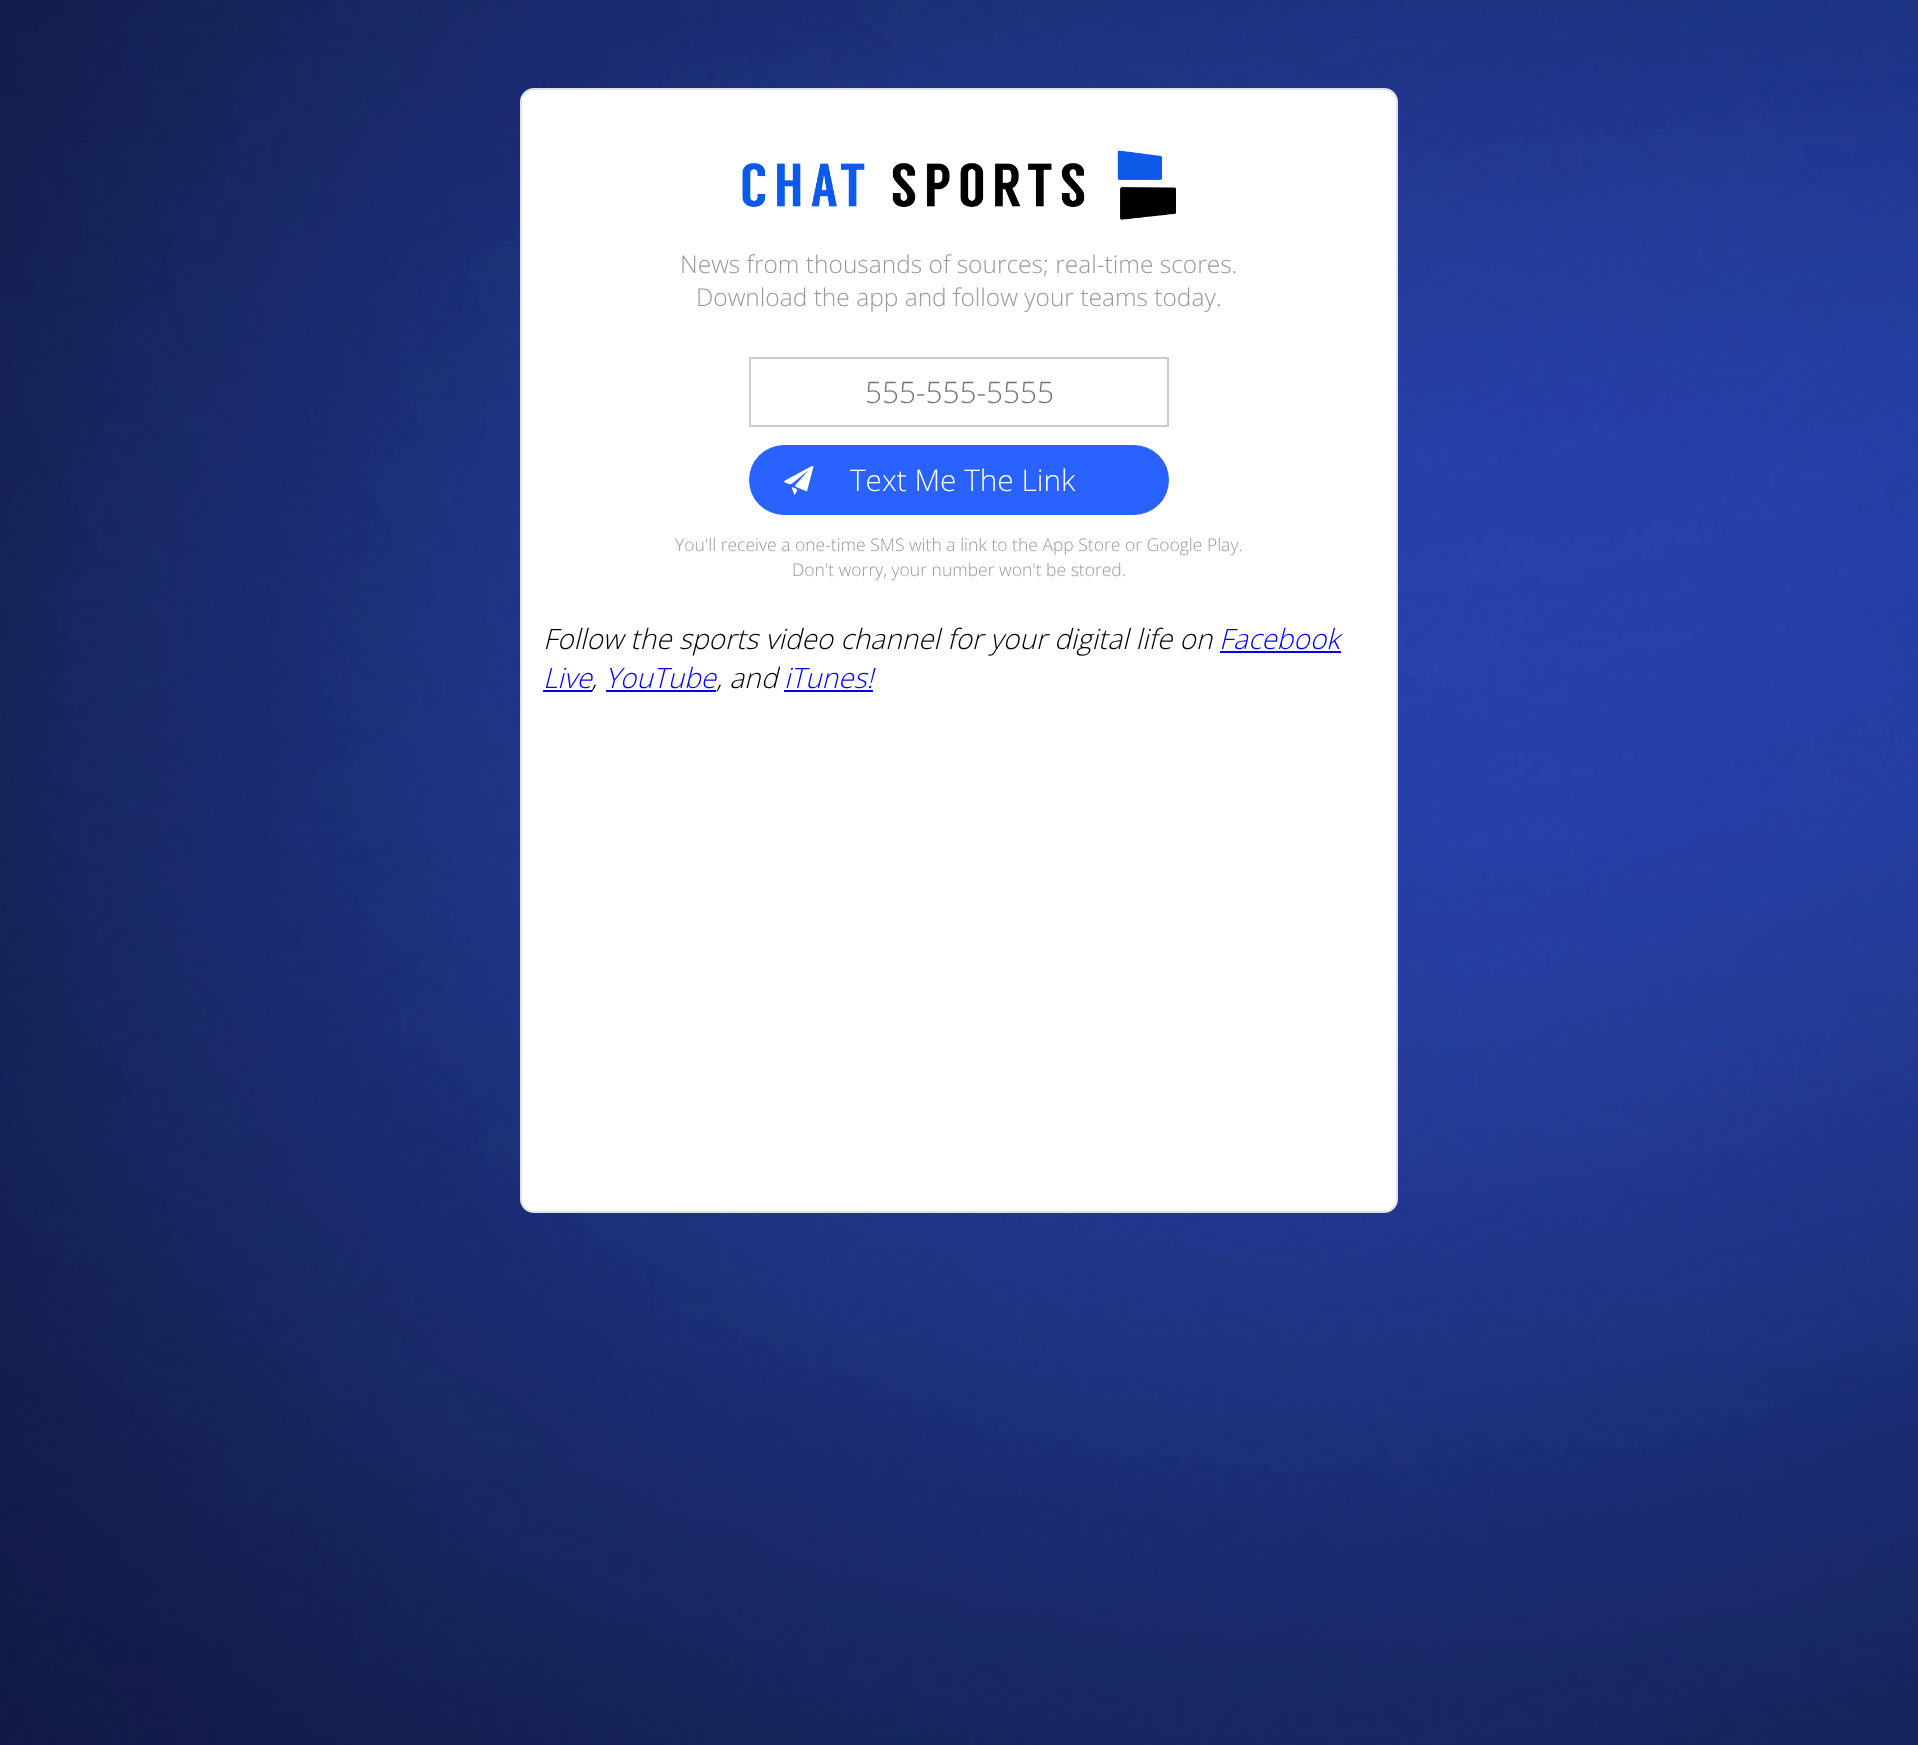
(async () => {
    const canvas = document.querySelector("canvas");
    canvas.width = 1918;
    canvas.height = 1745;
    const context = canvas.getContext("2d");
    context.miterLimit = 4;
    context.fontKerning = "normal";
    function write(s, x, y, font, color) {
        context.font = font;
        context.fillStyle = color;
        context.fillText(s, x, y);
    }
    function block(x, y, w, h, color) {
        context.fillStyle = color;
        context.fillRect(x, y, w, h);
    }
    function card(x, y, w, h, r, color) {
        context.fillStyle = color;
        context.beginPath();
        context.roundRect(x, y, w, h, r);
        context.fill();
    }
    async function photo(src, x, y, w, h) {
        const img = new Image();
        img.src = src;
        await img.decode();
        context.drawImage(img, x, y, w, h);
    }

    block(0, 0, 1918, 1745, "rgb(255, 255, 255)");
    await photo("media/1.png", 0, 0, 1918, 1745);
    context.beginPath();
    context.roundRect(521, 89, 876, 1123, 13);
    context.fill();
    context.strokeStyle = "rgb(222, 226, 233)";
    context.lineWidth = 2;
    context.stroke();
    await photo("media/2.png", 742, 150, 434, 70);
    write("News from thousands of sources; real-time scores.", 680, 273, "300 24.5px Open Sans", "rgb(153, 153, 153)");
    write("Download the app and follow your teams today.", 696, 306, "300 24.5px Open Sans", "rgb(153, 153, 153)");
    context.strokeStyle = "rgb(204, 204, 204)";
    context.strokeRect(750, 358, 418, 68);
    write("555-555-5555", 865, 403, "300 29.75px Open Sans", "rgb(117, 117, 117)");
    card(749, 445, 420, 70, 35, "rgb(41, 98, 255)");
    await photo("media/3.png", 784, 466, 30, 29);
    write("Text Me The Link", 850, 491, "300 29.75px Open Sans", "rgb(255, 255, 255)");
    write("You'll receive a one-time SMS with a link to the App Store or Google Play.", 675, 551, "300 17.5px Open Sans", "rgb(153, 153, 153)");
    write("Don't worry, your number won't be stored.", 792, 576, "300 17.5px Open Sans", "rgb(153, 153, 153)");
    write("Follow the sports video channel for your digital life on", 543, 649, "italic 300 28px Open Sans", "rgb(0, 0, 0)");
    write("Facebook", 1219, 649, "italic 300 28px Open Sans", "rgb(0, 0, 238)");
    block(1220, 651, 121, 2, "rgb(0, 0, 238)");
    write("Live", 543, 688, "italic 300 28px Open Sans", "rgb(0, 0, 238)");
    block(543, 690, 49, 2, "rgb(0, 0, 238)");
    write(",", 591, 688, "italic 300 28px Open Sans", "rgb(0, 0, 0)");
    block(606, 690, 110, 2, "rgb(0, 0, 238)");
    write("YouTube", 605, 688, "italic 300 28px Open Sans", "rgb(0, 0, 238)");
    write(", and", 716, 688, "italic 300 28px Open Sans", "rgb(0, 0, 0)");
    write("iTunes!", 784, 688, "italic 300 28px Open Sans", "rgb(0, 0, 238)");
    block(784, 690, 89, 2, "rgb(0, 0, 238)");
})();
